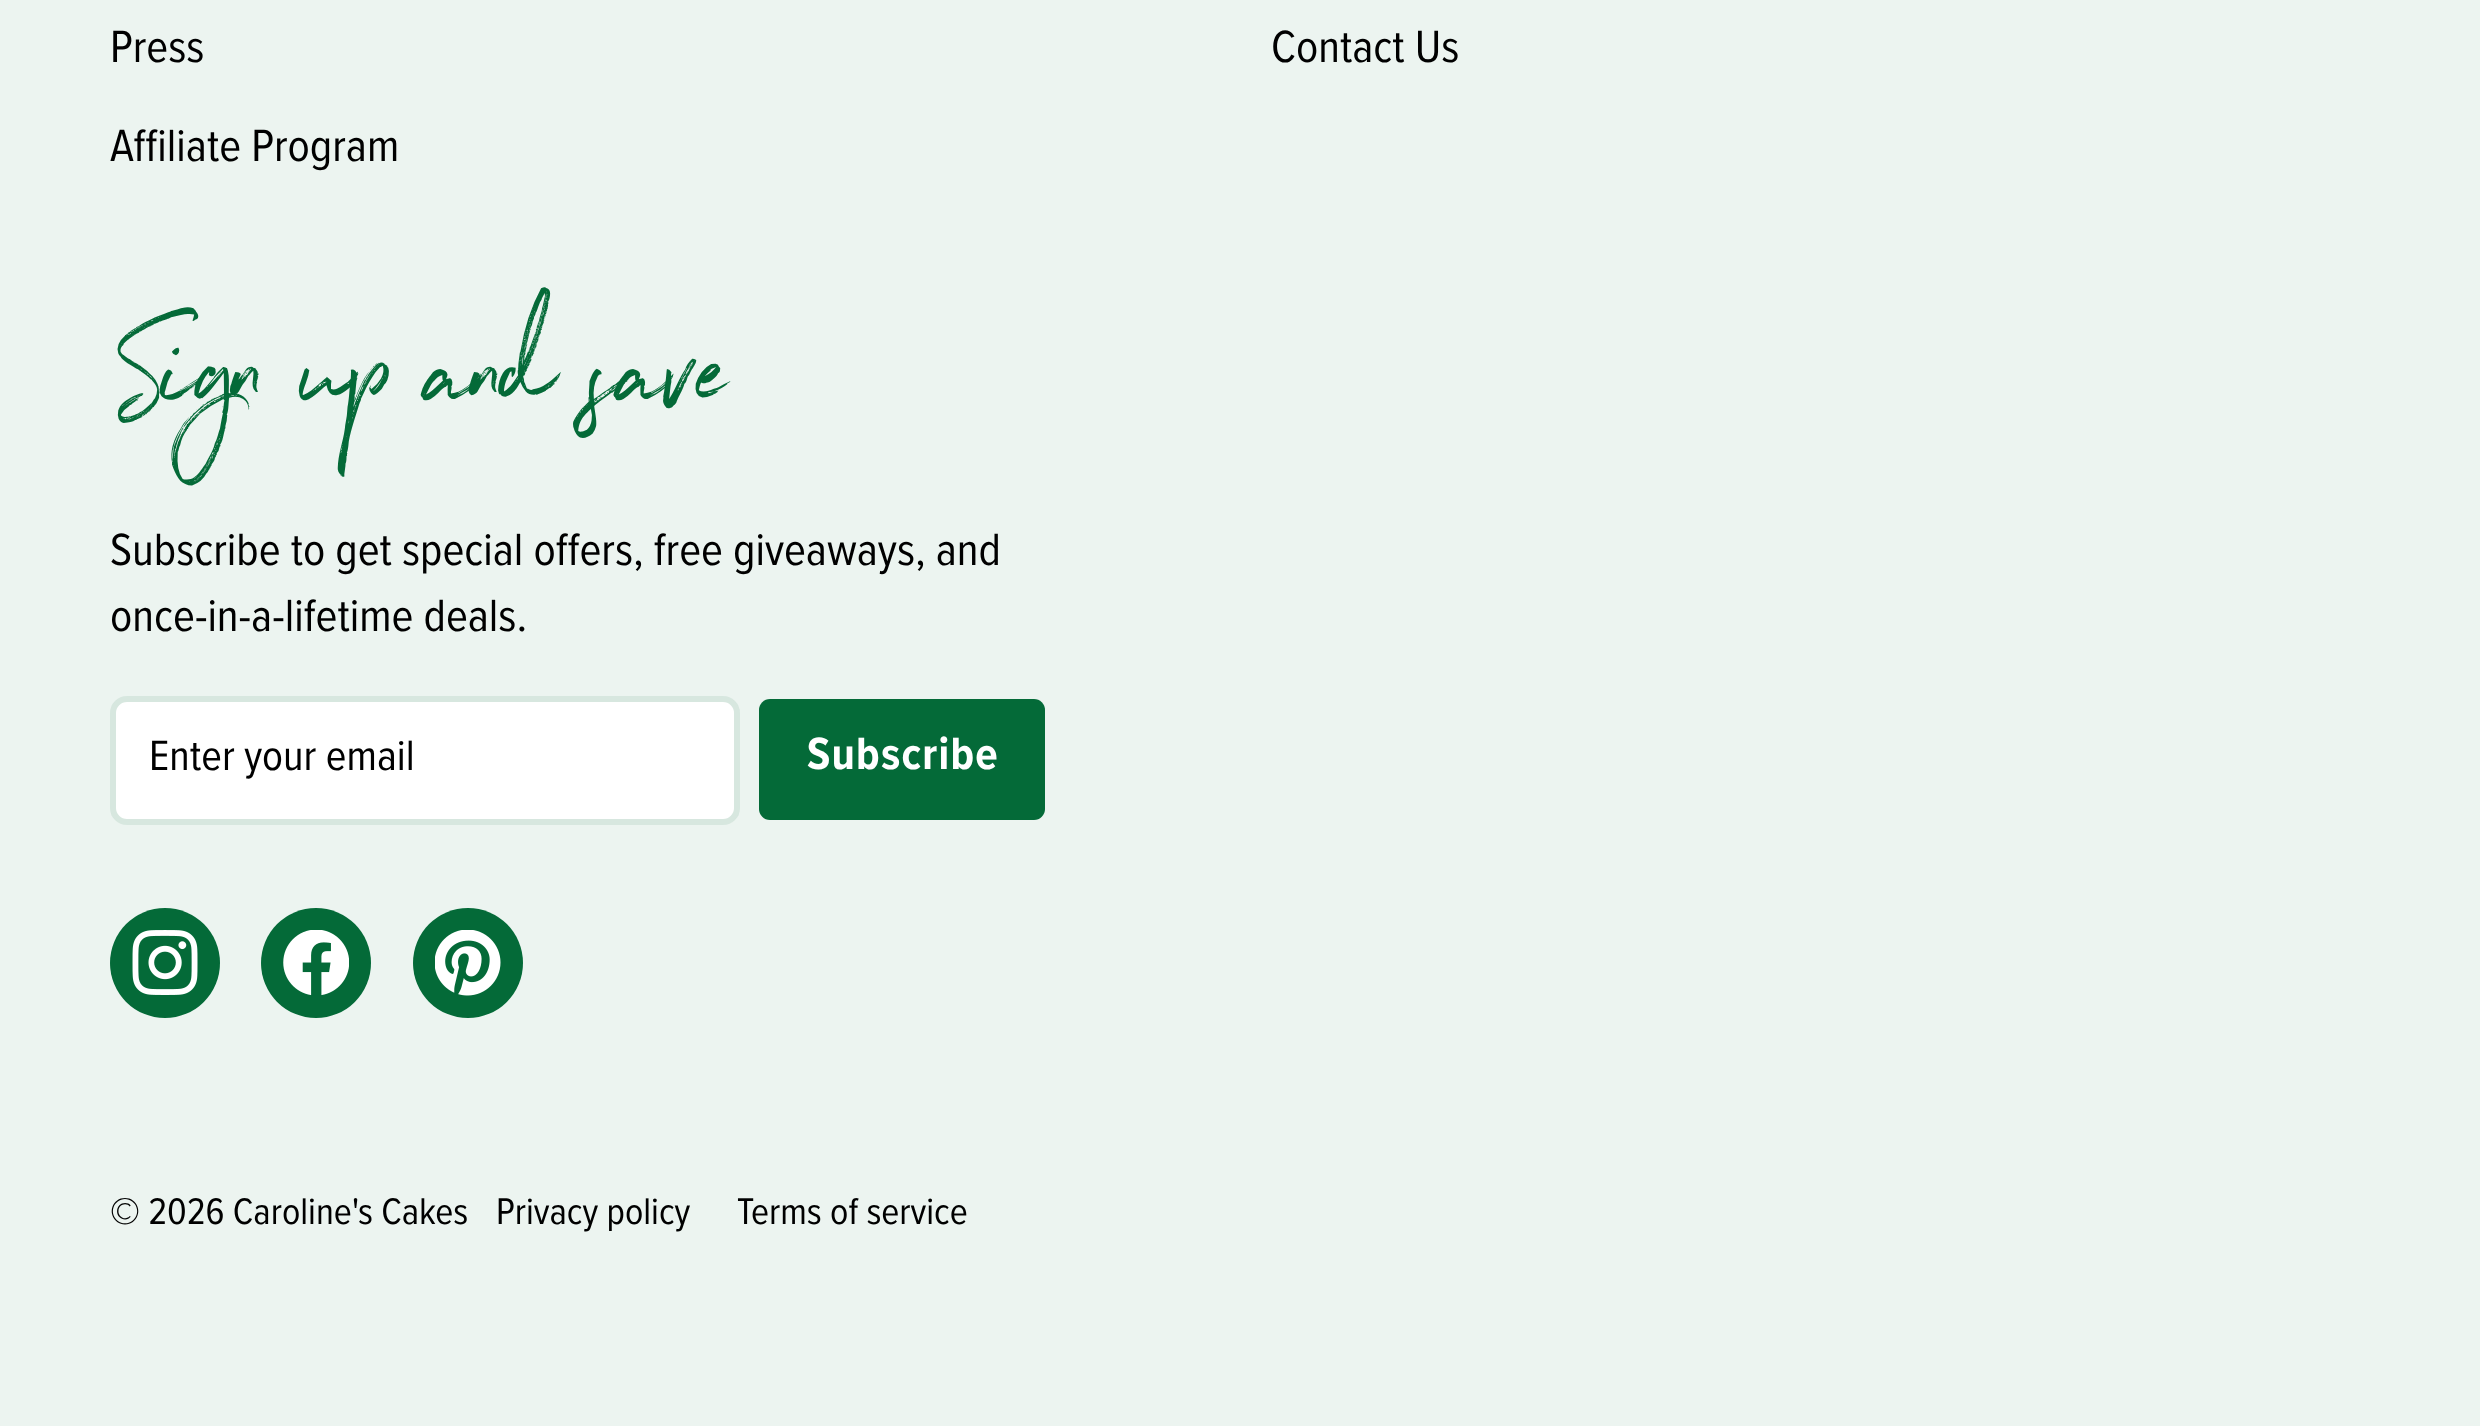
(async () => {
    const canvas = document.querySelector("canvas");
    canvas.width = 2480;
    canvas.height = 1426;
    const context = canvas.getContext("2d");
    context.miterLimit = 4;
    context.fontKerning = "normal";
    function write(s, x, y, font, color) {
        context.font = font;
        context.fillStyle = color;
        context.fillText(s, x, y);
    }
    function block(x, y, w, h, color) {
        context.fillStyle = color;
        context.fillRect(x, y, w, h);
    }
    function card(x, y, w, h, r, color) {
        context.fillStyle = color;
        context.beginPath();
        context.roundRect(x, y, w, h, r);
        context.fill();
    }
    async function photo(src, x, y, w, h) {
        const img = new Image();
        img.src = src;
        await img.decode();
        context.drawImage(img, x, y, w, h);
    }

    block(0, 0, 2480, 1426, "rgb(236, 244, 240)");
    write("Press", 110, 62, "46.75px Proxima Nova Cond", "rgb(0, 0, 0)");
    write("Affiliate Program", 110, 161, "46.75px Proxima Nova Cond", "rgb(0, 0, 0)");
    write("Contact Us", 1271, 62, "46.75px Proxima Nova Cond", "rgb(0, 0, 0)");
    context.letterSpacing = "-3.5px";
    write("Sign up and save", 110, 398, "137.5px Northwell", "rgb(4, 106, 56)");
    context.letterSpacing = "0px";
    write("Subscribe to get special offers, free giveaways, and", 110, 565, "46.75px Proxima Nova Cond", "rgb(0, 0, 0)");
    write("once-in-a-lifetime deals.", 110, 631, "46.75px Proxima Nova Cond", "rgb(0, 0, 0)");
    card(110, 696, 630, 129, 17, "rgb(255, 255, 255)");
    context.beginPath();
    context.roundRect(113, 699, 624, 123, 14);
    context.strokeStyle = "rgba(4, 106, 56, 0.16)";
    context.lineWidth = 6;
    context.stroke();
    write("Enter your email", 149, 770, "44px Proxima Nova Cond", "rgb(0, 0, 0)");
    card(759, 699, 286, 121, 11, "rgb(4, 106, 56)");
    context.letterSpacing = "1.25px";
    write("Subscribe", 807, 769, "bold 46.75px Proxima Nova Cond", "rgb(255, 255, 255)");
    context.fillStyle = "rgb(4, 106, 56)";
    context.beginPath();
    context.arc(165, 963, 55, 0, Math.PI * 2);
    context.fill();
    await photo("media/1.png", 132, 930, 66, 65);
    context.beginPath();
    context.arc(316, 963, 55, 0, Math.PI * 2);
    context.fill();
    await photo("media/2.png", 283, 930, 66, 66);
    context.beginPath();
    context.arc(468, 963, 55, 0, Math.PI * 2);
    context.fill();
    await photo("media/3.png", 435, 930, 66, 66);
    context.letterSpacing = "0px";
    write("© 2026 Caroline's Cakes", 110, 1224, "38.5px Proxima Nova Cond", "rgb(0, 0, 0)");
    write("Privacy policy", 496, 1224, "38.5px Proxima Nova Cond", "rgb(0, 0, 0)");
    write("Terms of service", 737, 1224, "38.5px Proxima Nova Cond", "rgb(0, 0, 0)");
})();
